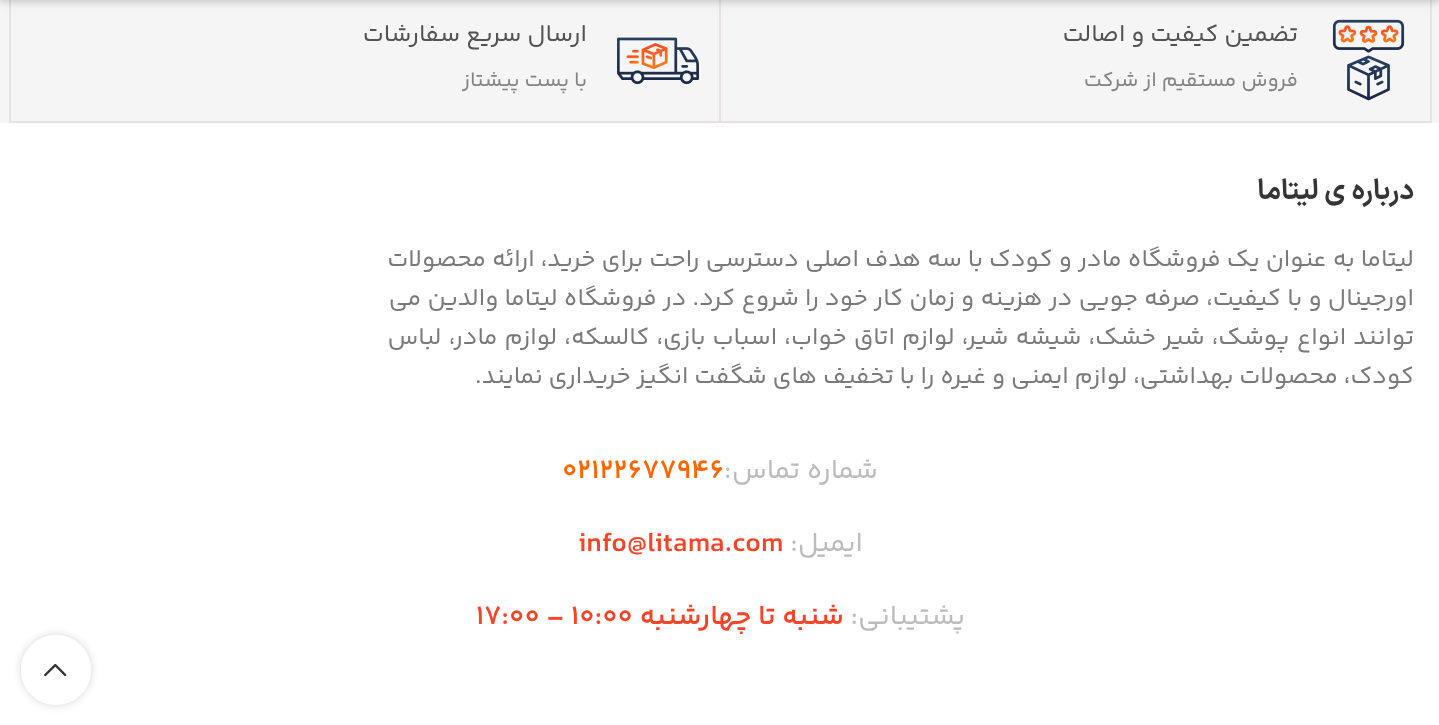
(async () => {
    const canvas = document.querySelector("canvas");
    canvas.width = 1439;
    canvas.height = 725;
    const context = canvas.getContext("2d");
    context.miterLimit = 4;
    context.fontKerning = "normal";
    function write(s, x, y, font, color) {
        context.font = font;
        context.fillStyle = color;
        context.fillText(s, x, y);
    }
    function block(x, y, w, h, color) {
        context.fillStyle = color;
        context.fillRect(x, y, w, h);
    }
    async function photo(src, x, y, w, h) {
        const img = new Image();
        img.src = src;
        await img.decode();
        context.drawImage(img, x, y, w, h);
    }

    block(0, 0, 1439, 725, "rgb(255, 255, 255)");
    block(0, 0, 1439, 123, "rgb(245, 245, 245)");
    block(1430, 0, 2, 123, "rgb(232, 226, 226)");
    block(719, 0, 2, 123, "rgb(232, 226, 226)");
    block(9, 121, 712, 2, "rgb(232, 226, 226)");
    block(9, 0, 2, 123, "rgb(232, 226, 226)");
    context.fillStyle = "rgba(0, 0, 0, 0.1)";
    context.filter = "blur(2.5px)";
    context.beginPath();
    context.rect(0, -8, 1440, 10);
    context.fill();
    context.filter = "none";
    await photo("media/1.png", 1332, 19, 73, 82);
    context.filter = "blur(7px)";
    context.beginPath();
    context.rect(0, -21, 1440, 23);
    context.fill();
    context.filter = "none";
    block(721, 121, 711, 2, "rgb(232, 226, 226)");
    context.direction = "rtl";
    write("تضمین کیفیت و اصالت", 1298, 41, "24.5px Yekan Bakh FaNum", "rgb(82, 82, 82)");
    write("فروش مستقیم از شرکت", 1298, 86, "21px Yekan Bakh FaNum", "rgb(131, 131, 131)");
    await photo("media/2.png", 617, 37, 82, 48);
    write("ارسال سریع سفارشات", 587, 41, "24.5px Yekan Bakh FaNum", "rgb(82, 82, 82)");
    write("با پست پیشتاز", 587, 86, "21px Yekan Bakh FaNum", "rgb(131, 131, 131)");
    write("درباره ی لیتاما", 1414, 199, "bold 28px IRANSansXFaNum", "rgb(53, 53, 53)");
    context.wordSpacing = "0.2px";
    write("لیتاما به عنوان یک فروشگاه مادر و کودک با سه هدف اصلی دسترسی راحت برای خرید، ارائه محصولات", 1414, 266, "24.5px Yekan Bakh FaNum", "rgb(122, 122, 122)");
    context.wordSpacing = "0.3px";
    write("اورجینال و با کیفیت، صرفه جویی در هزینه و زمان کار خود را شروع کرد. در فروشگاه لیتاما والدین می", 1414, 305, "24.5px Yekan Bakh FaNum", "rgb(122, 122, 122)");
    context.wordSpacing = "1.2px";
    write("توانند انواع پوشک، شیر خشک، شیشه شیر، لوازم اتاق خواب، اسباب بازی، کالسکه، لوازم مادر، لباس", 1414, 344, "24.5px Yekan Bakh FaNum", "rgb(122, 122, 122)");
    context.wordSpacing = "0px";
    write("کودک، محصولات بهداشتی، لوازم ایمنی و غیره را با تخفیف های شگفت انگیز خریداری نمایند.", 1414, 383, "24.5px Yekan Bakh FaNum", "rgb(122, 122, 122)");
    write("شماره تماس:", 878, 478, "28px Yekan Bakh FaNum", "rgb(188, 188, 188)");
    context.direction = "ltr";
    write("02122677946", 562, 478, "600 28px Yekan Bakh FaNum", "rgb(255, 102, 0)");
    context.direction = "rtl";
    write("ایمیل:", 863, 551, "28px Yekan Bakh FaNum", "rgb(188, 188, 188)");
    context.direction = "ltr";
    write("info@litama.com", 578, 551, "600 28px Yekan Bakh FaNum", "rgb(249, 67, 39)");
    context.direction = "rtl";
    write("پشتیبانی:", 965, 624, "28px Yekan Bakh FaNum", "rgb(188, 188, 188)");
    write("شنبه تا چهارشنبه", 844, 624, "600 28px Yekan Bakh FaNum", "rgb(249, 67, 39)");
    context.direction = "ltr";
    write("17:00 – 10:00", 476, 624, "600 28px Yekan Bakh FaNum", "rgb(249, 67, 39)");
    context.save();
    context.beginPath();
    context.moveTo(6, 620);
    context.lineTo(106, 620);
    context.lineTo(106, 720);
    context.lineTo(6, 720);
    context.closePath();
    context.moveTo(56, 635);
    context.bezierCurveTo(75.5, 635, 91, 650.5, 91, 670);
    context.bezierCurveTo(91, 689.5, 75.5, 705, 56, 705);
    context.bezierCurveTo(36.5, 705, 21, 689.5, 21, 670);
    context.bezierCurveTo(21, 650.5, 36.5, 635, 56, 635);
    context.closePath();
    context.clip("evenodd");
    context.fillStyle = "rgba(0, 0, 0, 0.17)";
    context.filter = "blur(4.5px)";
    context.beginPath();
    context.roundRect(21, 635, 70, 70, 35);
    context.fill();
    context.filter = "none";
    context.restore();
    context.fillStyle = "rgba(255, 255, 255, 0.9)";
    context.beginPath();
    context.arc(56, 670, 35, 0, Math.PI * 2);
    context.fill();
    await photo("media/3.png", 44, 663, 23, 14);
})();
